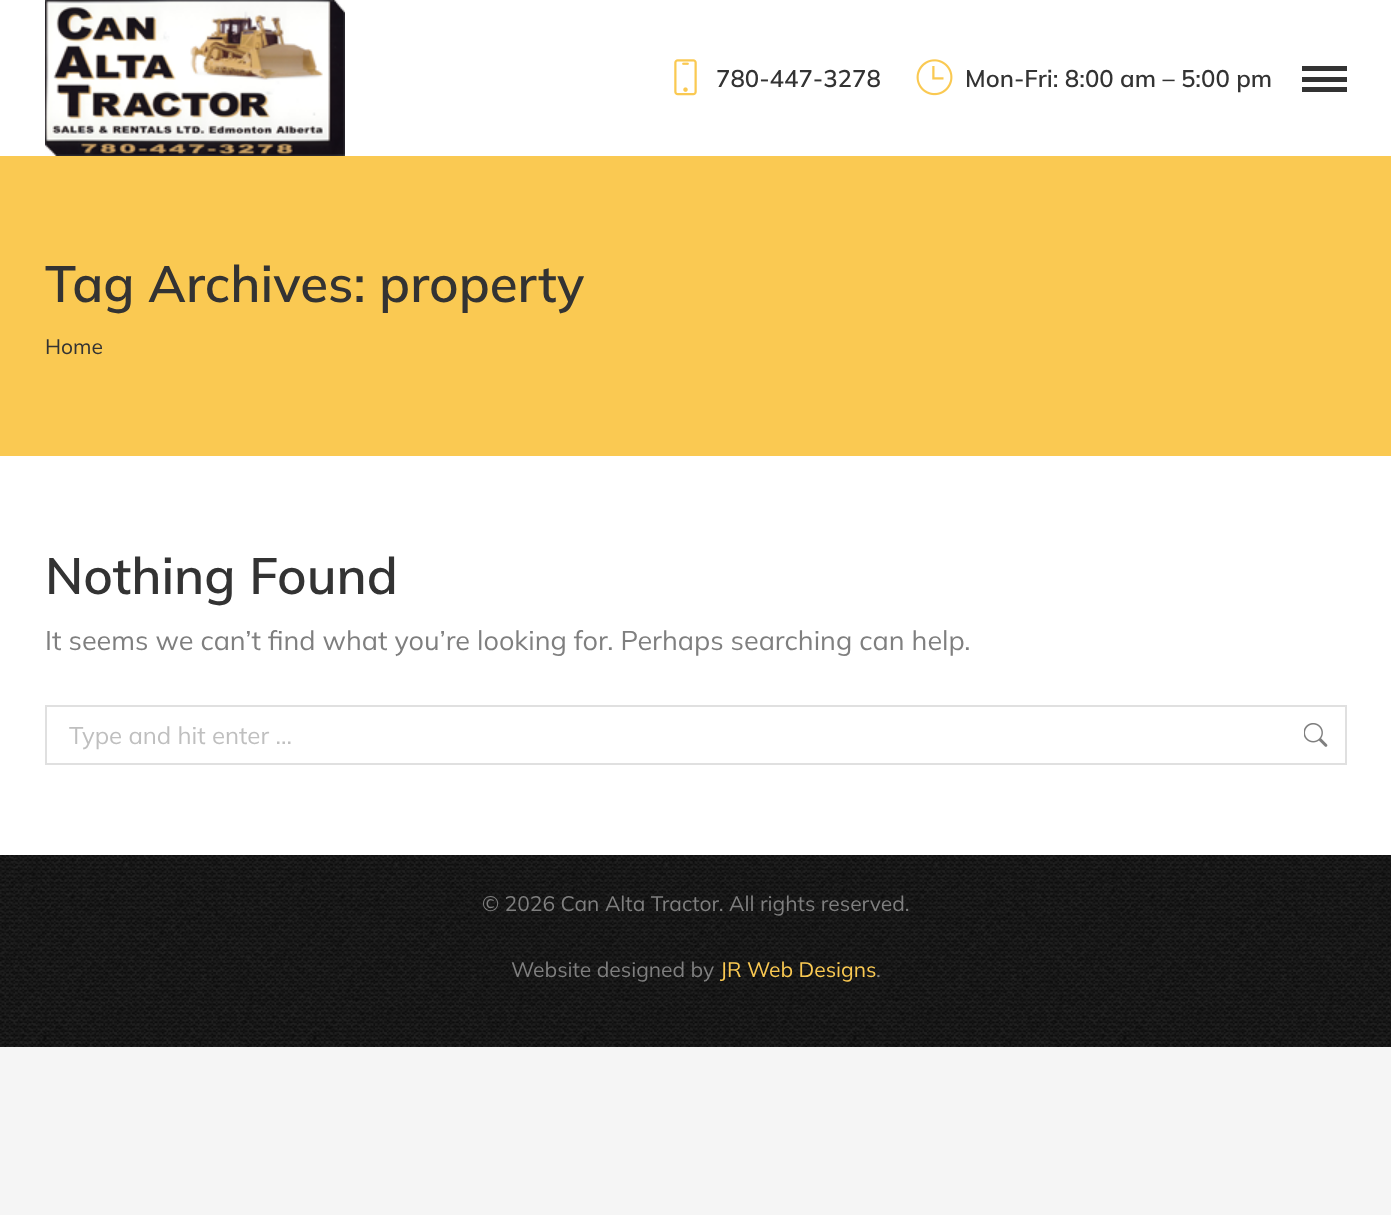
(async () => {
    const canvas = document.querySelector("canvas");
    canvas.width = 1391;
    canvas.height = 1215;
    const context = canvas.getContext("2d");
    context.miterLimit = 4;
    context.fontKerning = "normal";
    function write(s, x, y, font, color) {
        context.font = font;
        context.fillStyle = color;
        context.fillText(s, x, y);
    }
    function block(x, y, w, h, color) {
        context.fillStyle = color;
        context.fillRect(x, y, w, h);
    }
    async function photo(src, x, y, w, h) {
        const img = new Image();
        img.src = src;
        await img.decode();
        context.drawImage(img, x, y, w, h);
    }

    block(0, 0, 1391, 1215, "rgb(245, 245, 245)");
    block(0, 0, 1391, 855, "rgb(255, 255, 255)");
    await photo("media/1.png", 45, 0, 300, 156);
    await photo("media/2.png", 674, 59, 23, 37);
    write("780-447-3278", 716, 87, "600 24px Mulish", "rgb(51, 51, 51)");
    await photo("media/3.png", 916, 59, 37, 37);
    write("Mon-Fri: 8:00 am – 5:00 pm", 965, 87, "600 24px Mulish", "rgb(51, 51, 51)");
    block(1302, 66, 45, 5, "rgb(51, 51, 51)");
    block(1302, 77, 45, 5, "rgb(51, 51, 51)");
    block(1302, 87, 45, 5, "rgb(51, 51, 51)");
    block(0, 156, 1391, 300, "rgb(250, 201, 82)");
    write("Tag Archives: property", 45, 302, "600 51px Mulish", "rgb(51, 51, 51)");
    write("Home", 45, 354, "21px Mulish", "rgb(51, 51, 51)");
    write("Nothing Found", 45, 594, "600 51px Mulish", "rgb(51, 51, 51)");
    write("It seems we can’t find what you’re looking for. Perhaps searching can help.", 45, 650, "27px Mulish", "rgb(127, 127, 127)");
    context.strokeStyle = "rgb(224, 224, 224)";
    context.lineWidth = 2;
    context.strokeRect(46, 706, 1300, 58);
    write("Type and hit enter …", 69, 744, "24px Mulish", "rgb(191, 191, 191)");
    await photo("media/4.png", 1304, 723, 24, 24);
    await photo("media/5.png", 0, 855, 1391, 192);
    write("© 2026 Can Alta Tractor. All rights reserved.", 482, 911, "21px Mulish", "rgb(127, 127, 127)");
    write("Website designed by", 511, 977, "21px Mulish", "rgb(127, 127, 127)");
    write("JR Web Designs", 720, 977, "21px Mulish", "rgb(250, 201, 82)");
    write(".", 876, 977, "21px Mulish", "rgb(127, 127, 127)");
})();
